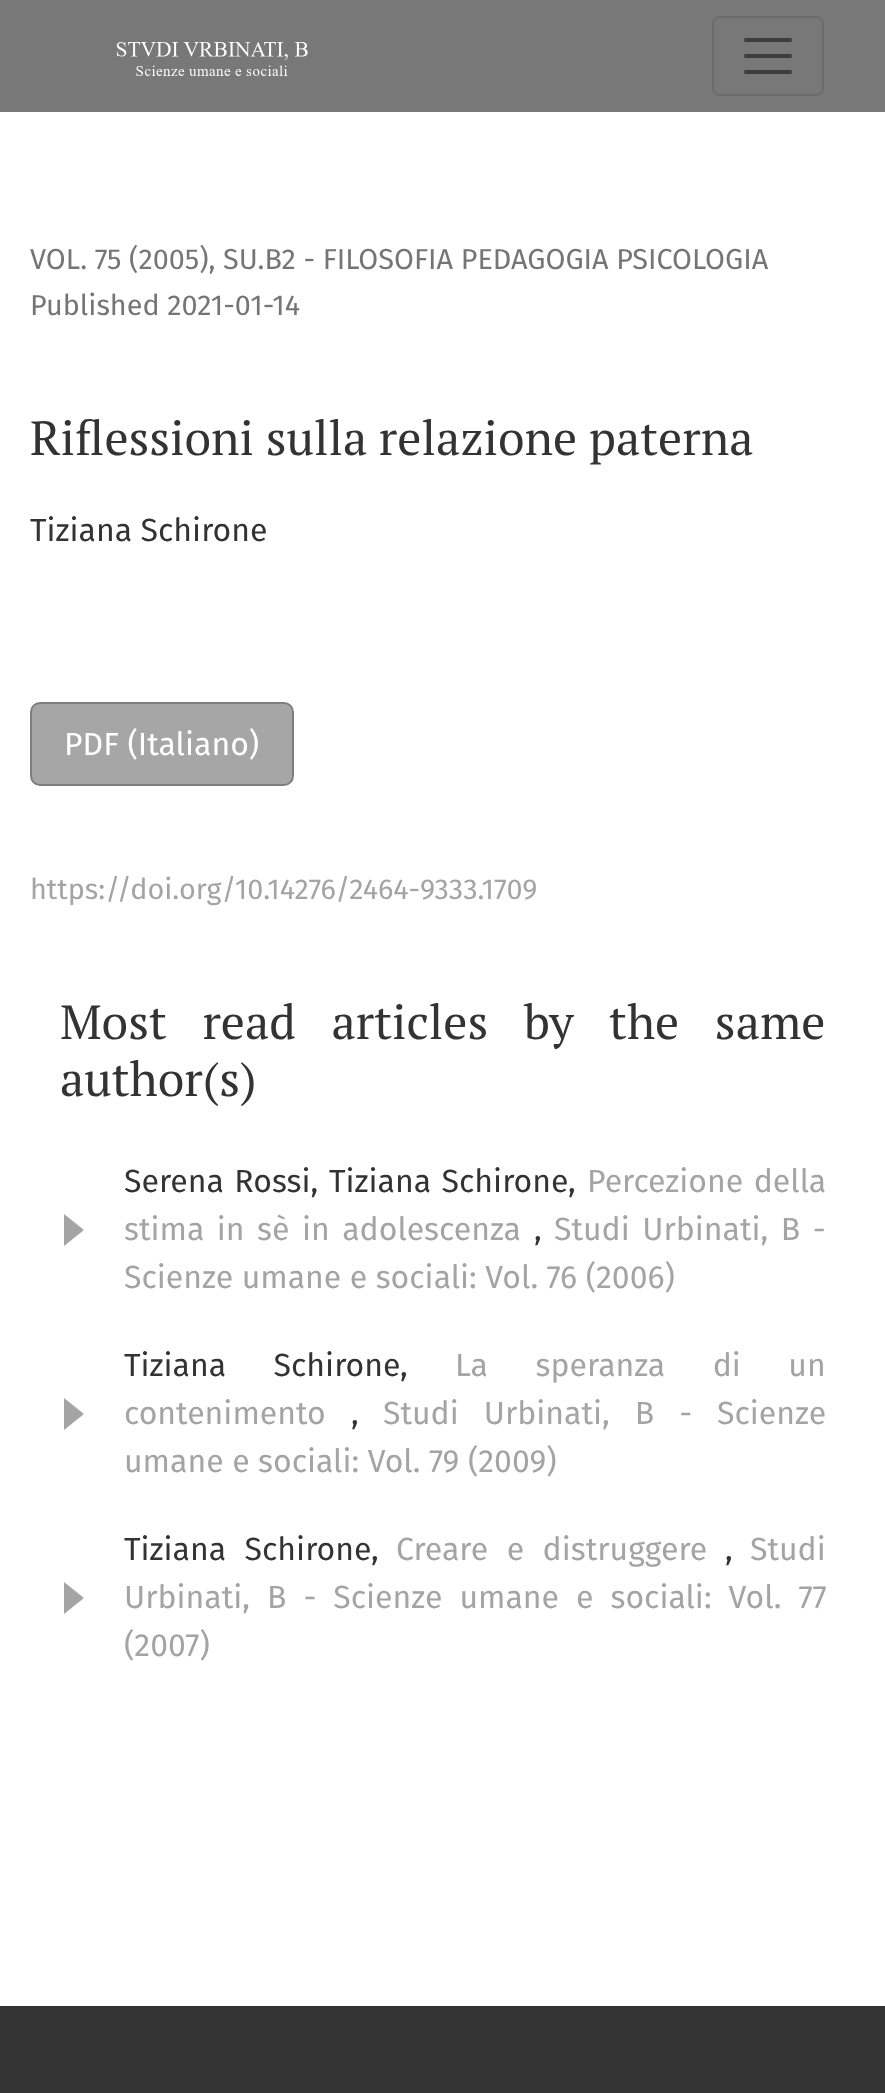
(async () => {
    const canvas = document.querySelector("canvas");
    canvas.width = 885;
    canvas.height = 2093;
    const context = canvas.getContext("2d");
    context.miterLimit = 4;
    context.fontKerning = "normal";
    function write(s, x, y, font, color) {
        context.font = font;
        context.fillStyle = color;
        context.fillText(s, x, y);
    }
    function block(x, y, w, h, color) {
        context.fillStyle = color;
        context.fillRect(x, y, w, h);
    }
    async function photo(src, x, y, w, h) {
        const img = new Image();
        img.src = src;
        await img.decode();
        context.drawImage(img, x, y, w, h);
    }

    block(0, 0, 885, 2093, "rgb(255, 255, 255)");
    block(0, 0, 885, 112, "rgb(120, 120, 120)");
    await photo("media/1.png", 116, 42, 192, 34);
    context.beginPath();
    context.roundRect(713, 17, 110, 78, 7);
    context.strokeStyle = "rgb(108, 108, 108)";
    context.lineWidth = 2;
    context.stroke();
    context.beginPath();
    context.moveTo(746, 40);
    context.lineTo(790, 40);
    context.moveTo(746, 56);
    context.lineTo(790, 56);
    context.moveTo(746, 72);
    context.lineTo(790, 72);
    context.strokeStyle = "rgb(60, 60, 60)";
    context.lineWidth = 4;
    context.lineCap = "round";
    context.stroke();
    write("VOL. 75 (2005), SU.B2 - FILOSOFIA PEDAGOGIA PSICOLOGIA", 30, 269, "28.8px Fira Sans", "rgb(117, 117, 117)");
    write("Published 2021-01-14", 30, 315, "28.8px Fira Sans", "rgb(117, 117, 117)");
    write("Riflessioni sulla relazione paterna", 30, 455, "48px PT Serif", "rgb(51, 51, 51)");
    write("Tiziana Schirone", 30, 541, "32px Fira Sans", "rgb(51, 51, 51)");
    context.fillStyle = "rgb(166, 166, 166)";
    context.beginPath();
    context.roundRect(31, 703, 262, 82, 9);
    context.fill();
    context.strokeStyle = "rgb(126, 126, 126)";
    context.lineWidth = 2;
    context.stroke();
    write("PDF (Italiano)", 64, 755, "32px Fira Sans", "rgb(255, 255, 255)");
    write("https://doi.org/10.14276/2464-9333.1709", 30, 899, "28.8px Fira Sans", "rgb(164, 164, 164)");
    context.wordSpacing = "24px";
    write("Most read articles by the same", 60, 1039, "48px PT Serif", "rgb(51, 51, 51)");
    context.wordSpacing = "0px";
    write("author(s)", 60, 1096, "48px PT Serif", "rgb(51, 51, 51)");
    context.wordSpacing = "2px";
    write("Serena Rossi,", 124, 1192, "32px Fira Sans", "rgb(51, 51, 51)");
    write("Tiziana Schirone,", 329, 1192, "32px Fira Sans", "rgb(51, 51, 51)");
    write("Percezione della", 587, 1192, "32px Fira Sans", "rgb(164, 164, 164)");
    context.beginPath();
    context.moveTo(64, 1246);
    context.lineTo(64, 1214);
    context.lineTo(84, 1230);
    context.closePath();
    context.fill();
    context.wordSpacing = "4px";
    write("stima in sè in adolescenza", 124, 1240, "32px Fira Sans", "rgb(164, 164, 164)");
    context.wordSpacing = "0px";
    write(",", 534, 1240, "32px Fira Sans", "rgb(51, 51, 51)");
    context.wordSpacing = "4px";
    write("Studi Urbinati, B -", 554, 1240, "32px Fira Sans", "rgb(164, 164, 164)");
    context.wordSpacing = "0px";
    write("Scienze umane e sociali: Vol. 76 (2006)", 124, 1288, "32px Fira Sans", "rgb(164, 164, 164)");
    context.wordSpacing = "39px";
    write("Tiziana Schirone,", 124, 1376, "32px Fira Sans", "rgb(51, 51, 51)");
    write("La speranza di un", 455, 1376, "32px Fira Sans", "rgb(164, 164, 164)");
    context.beginPath();
    context.moveTo(64, 1430);
    context.lineTo(64, 1398);
    context.lineTo(84, 1414);
    context.closePath();
    context.fill();
    context.wordSpacing = "0px";
    write("contenimento", 124, 1424, "32px Fira Sans", "rgb(164, 164, 164)");
    write(",", 351, 1424, "32px Fira Sans", "rgb(51, 51, 51)");
    context.wordSpacing = "16.5px";
    write("Studi Urbinati, B - Scienze", 383, 1424, "32px Fira Sans", "rgb(164, 164, 164)");
    context.wordSpacing = "0px";
    write("umane e sociali: Vol. 79 (2009)", 124, 1472, "32px Fira Sans", "rgb(164, 164, 164)");
    context.wordSpacing = "10px";
    write("Tiziana Schirone,", 124, 1560, "32px Fira Sans", "rgb(51, 51, 51)");
    write("Creare e distruggere", 396, 1560, "32px Fira Sans", "rgb(164, 164, 164)");
    context.wordSpacing = "0px";
    write(",", 725, 1560, "32px Fira Sans", "rgb(51, 51, 51)");
    write("Studi", 750, 1560, "32px Fira Sans", "rgb(164, 164, 164)");
    context.beginPath();
    context.moveTo(64, 1614);
    context.lineTo(64, 1582);
    context.lineTo(84, 1598);
    context.closePath();
    context.fill();
    context.wordSpacing = "8.5px";
    write("Urbinati, B - Scienze umane e sociali: Vol. 77", 124, 1608, "32px Fira Sans", "rgb(164, 164, 164)");
    context.wordSpacing = "0px";
    write("(2007)", 124, 1656, "32px Fira Sans", "rgb(164, 164, 164)");
    block(0, 2006, 885, 87, "rgb(51, 51, 51)");
})();
